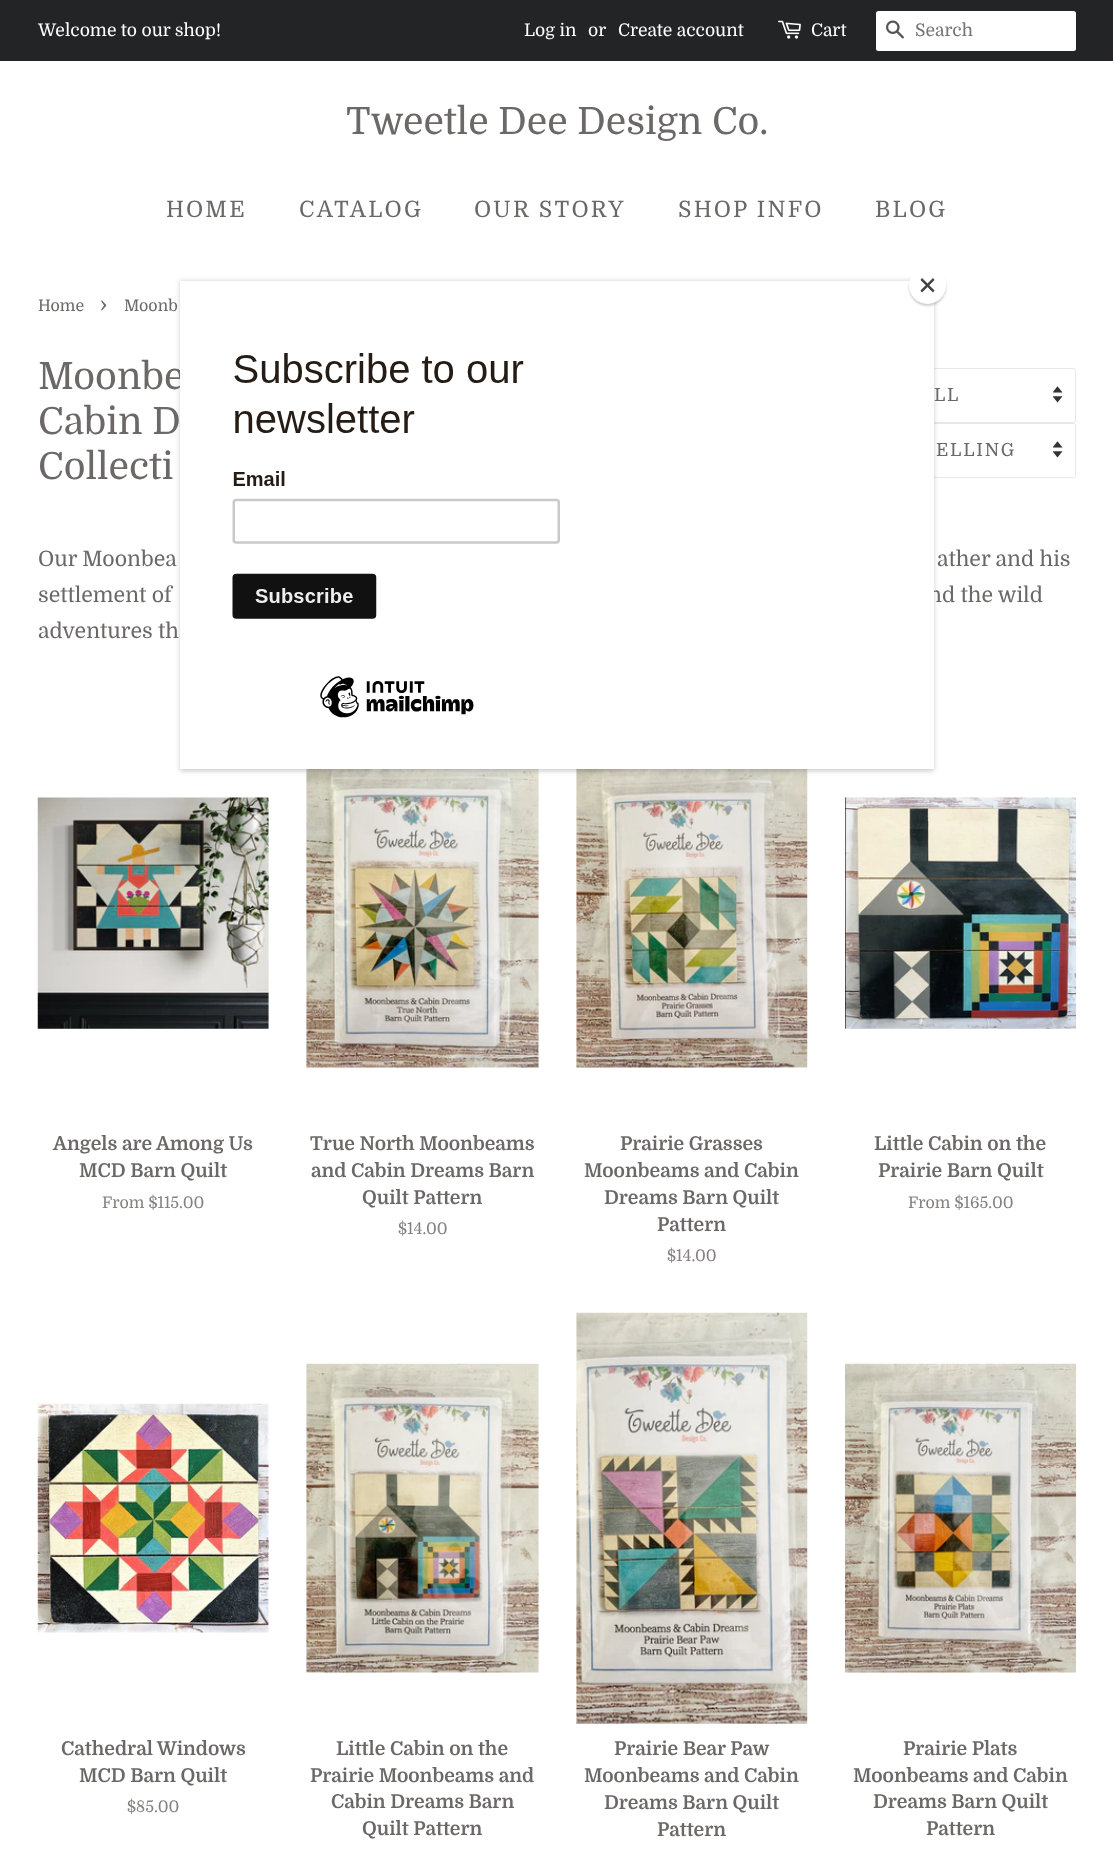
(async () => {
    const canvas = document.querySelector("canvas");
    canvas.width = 1113;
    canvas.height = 1859;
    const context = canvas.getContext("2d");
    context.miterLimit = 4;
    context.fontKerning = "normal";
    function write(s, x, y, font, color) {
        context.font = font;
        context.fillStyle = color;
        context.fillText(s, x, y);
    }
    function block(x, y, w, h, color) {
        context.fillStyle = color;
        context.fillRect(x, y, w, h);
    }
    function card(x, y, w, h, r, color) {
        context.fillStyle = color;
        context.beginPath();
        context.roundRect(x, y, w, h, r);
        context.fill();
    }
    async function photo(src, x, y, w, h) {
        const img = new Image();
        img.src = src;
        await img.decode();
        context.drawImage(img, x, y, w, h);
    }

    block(0, 0, 1113, 1859, "rgb(255, 255, 255)");
    block(0, 0, 1113, 61, "rgb(34, 36, 38)");
    write("Welcome to our shop!", 38, 36, "17.5px Domine", "rgb(255, 255, 255)");
    write("Log in", 524, 36, "17.5px Domine", "rgb(255, 255, 255)");
    write("or", 588, 36, "17.5px Domine", "rgb(255, 255, 255)");
    write("Create account", 618, 36, "17.5px Domine", "rgb(255, 255, 255)");
    await photo("media/1.png", 778, 20, 23, 19);
    write("Cart", 811, 36, "17.5px Domine", "rgb(255, 255, 255)");
    card(876, 11, 200, 40, 2.5, "rgb(255, 255, 255)");
    await photo("media/2.png", 886, 20, 18, 19);
    write("Search", 915, 36, "17.5px Domine", "rgb(117, 117, 117)");
    write("Tweetle Dee Design Co.", 346, 134, "37.5px Domine", "rgb(108, 104, 104)");
    context.letterSpacing = "2.25px";
    write("HOME", 166, 217, "22.5px Domine", "rgb(108, 104, 104)");
    write("CATALOG", 299, 217, "22.5px Domine", "rgb(108, 104, 104)");
    write("OUR STORY", 474, 217, "22.5px Domine", "rgb(108, 104, 104)");
    write("SHOP INFO", 678, 217, "22.5px Domine", "rgb(108, 104, 104)");
    write("BLOG", 875, 217, "22.5px Domine", "rgb(108, 104, 104)");
    await photo("media/4.png", 1053, 386, 10, 17);
    context.beginPath();
    context.roundRect(826.5, 368.5, 249, 54, 2);
    context.strokeStyle = "rgb(233, 232, 232)";
    context.stroke();
    await photo("media/4.png", 1053, 441, 10, 17);
    context.beginPath();
    context.roundRect(826.5, 423.5, 249, 54, 2);
    context.stroke();
    await photo("media/6.png", 306, 769, 233, 299);
    await photo("media/7.png", 576, 769, 232, 299);
    context.fillStyle = "rgba(0, 0, 0, 0.2)";
    context.filter = "blur(2.5px)";
    context.beginPath();
    context.rect(180, 281, 754, 490);
    context.fill();
    context.filter = "none";
    context.letterSpacing = "0px";
    write("Moonbe", 38, 389, "37.5px Domine", "rgb(108, 104, 104)");
    write("nd the wild", 928, 602, "21.25px Domine", "rgb(108, 104, 104)");
    await photo("media/3.png", 180, 281, 754, 488);
    context.fillStyle = "rgba(0, 0, 0, 0.2)";
    context.filter = "blur(1px)";
    context.beginPath();
    context.roundRect(909, 269, 37, 37, 18.5);
    context.fill();
    context.filter = "none";
    card(909, 266, 37, 38, 18.5, "rgb(255, 255, 255)");
    context.fillStyle = "rgb(65, 65, 65)";
    context.beginPath();
    context.moveTo(933, 278);
    context.lineTo(934.5, 280);
    context.lineTo(922, 292.5);
    context.lineTo(920.5, 290.5);
    context.closePath();
    context.fill();
    context.beginPath();
    context.moveTo(920.5, 280);
    context.lineTo(922, 278);
    context.lineTo(934.5, 290.5);
    context.lineTo(933, 292.5);
    context.closePath();
    context.fill();
    write("Home", 38, 311, "16px Domine", "rgb(108, 104, 104)");
    write("›", 100, 311, "22px Domine", "rgb(108, 104, 104)");
    write("Moonb", 124, 311, "16px Domine", "rgb(108, 104, 104)");
    write("Cabin D", 38, 434, "37.5px Domine", "rgb(108, 104, 104)");
    write("Collecti", 38, 479, "37.5px Domine", "rgb(108, 104, 104)");
    context.letterSpacing = "1.75px";
    write("LL", 934, 401, "18px Domine", "rgb(108, 104, 104)");
    write("ELLING", 936, 456, "18px Domine", "rgb(108, 104, 104)");
    context.letterSpacing = "0px";
    write("Our Moonbea", 38, 566, "21.25px Domine", "rgb(108, 104, 104)");
    write("ather and his", 937, 566, "21.25px Domine", "rgb(108, 104, 104)");
    write("settlement of", 38, 602, "21.25px Domine", "rgb(108, 104, 104)");
    write("adventures th", 38, 638, "21.25px Domine", "rgb(108, 104, 104)");
    await photo("media/5.png", 37, 797, 232, 232);
    write("Angels are Among Us", 53, 1150, "bold 19.1px Domine", "rgb(108, 104, 104)");
    write("MCD Barn Quilt", 79, 1177, "bold 19.1px Domine", "rgb(108, 104, 104)");
    write("From $115.00", 102, 1208, "16px Domine", "rgb(134, 129, 129)");
    write("True North Moonbeams", 310, 1150, "bold 19.1px Domine", "rgb(108, 104, 104)");
    write("and Cabin Dreams Barn", 311, 1177, "bold 19.1px Domine", "rgb(108, 104, 104)");
    write("Quilt Pattern", 362, 1204, "bold 19.1px Domine", "rgb(108, 104, 104)");
    write("$14.00", 398, 1234, "16px Domine", "rgb(134, 129, 129)");
    write("Prairie Grasses", 620, 1150, "bold 19.1px Domine", "rgb(108, 104, 104)");
    write("Moonbeams and Cabin", 584, 1177, "bold 19.1px Domine", "rgb(108, 104, 104)");
    write("Dreams Barn Quilt", 604, 1204, "bold 19.1px Domine", "rgb(108, 104, 104)");
    write("Pattern", 657, 1231, "bold 19.1px Domine", "rgb(108, 104, 104)");
    write("$14.00", 667, 1261, "16px Domine", "rgb(134, 129, 129)");
    await photo("media/8.png", 845, 797, 232, 232);
    write("Little Cabin on the", 874, 1150, "bold 19.1px Domine", "rgb(108, 104, 104)");
    write("Prairie Barn Quilt", 878, 1177, "bold 19.1px Domine", "rgb(108, 104, 104)");
    write("From $165.00", 908, 1208, "16px Domine", "rgb(134, 129, 129)");
    await photo("media/9.png", 37, 1403, 232, 230);
    write("Cathedral Windows", 61, 1755, "bold 19.1px Domine", "rgb(108, 104, 104)");
    write("MCD Barn Quilt", 79, 1782, "bold 19.1px Domine", "rgb(108, 104, 104)");
    write("$85.00", 127, 1812, "16px Domine", "rgb(134, 129, 129)");
    await photo("media/10.png", 306, 1363, 233, 310);
    write("Little Cabin on the", 336, 1755, "bold 19.1px Domine", "rgb(108, 104, 104)");
    write("Prairie Moonbeams and", 310, 1782, "bold 19.1px Domine", "rgb(108, 104, 104)");
    write("Cabin Dreams Barn", 331, 1808, "bold 19.1px Domine", "rgb(108, 104, 104)");
    write("Quilt Pattern", 362, 1835, "bold 19.1px Domine", "rgb(108, 104, 104)");
    await photo("media/11.png", 576, 1312, 232, 412);
    write("Prairie Bear Paw", 614, 1755, "bold 19.1px Domine", "rgb(108, 104, 104)");
    write("Moonbeams and Cabin", 584, 1782, "bold 19.1px Domine", "rgb(108, 104, 104)");
    write("Dreams Barn Quilt", 604, 1809, "bold 19.1px Domine", "rgb(108, 104, 104)");
    write("Pattern", 657, 1836, "bold 19.1px Domine", "rgb(108, 104, 104)");
    await photo("media/12.png", 845, 1363, 232, 310);
    write("Prairie Plats", 903, 1755, "bold 19.1px Domine", "rgb(108, 104, 104)");
    write("Moonbeams and Cabin", 853, 1782, "bold 19.1px Domine", "rgb(108, 104, 104)");
    write("Dreams Barn Quilt", 873, 1808, "bold 19.1px Domine", "rgb(108, 104, 104)");
    write("Pattern", 926, 1835, "bold 19.1px Domine", "rgb(108, 104, 104)");
})();
